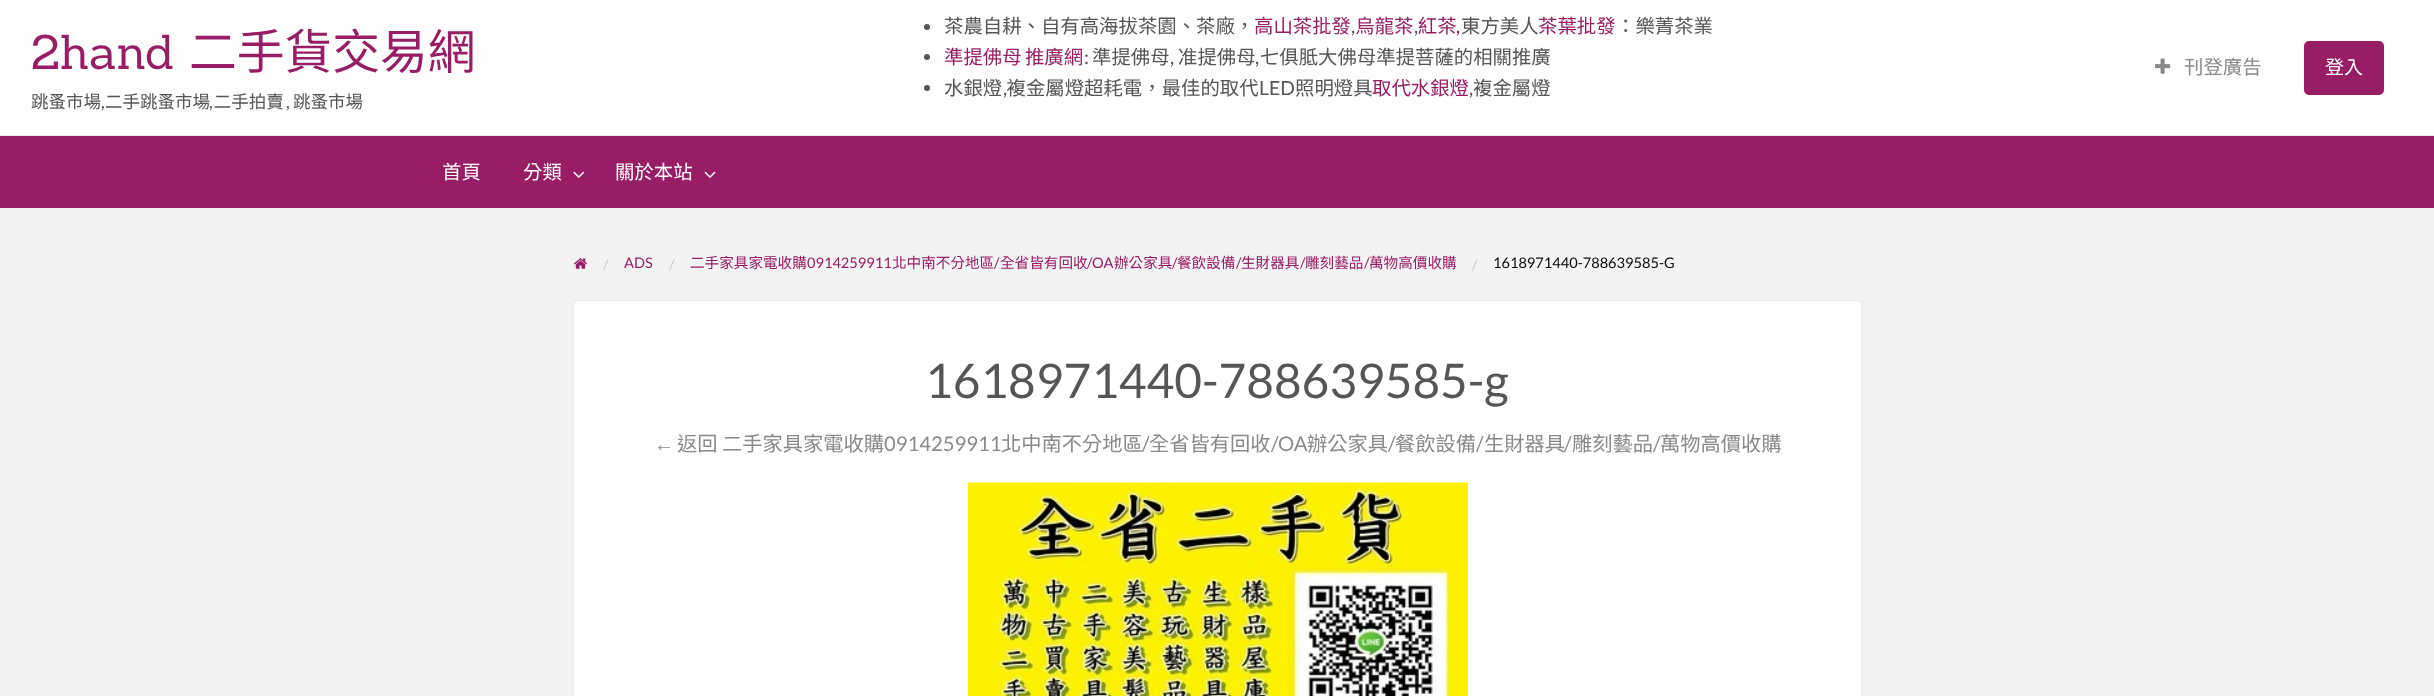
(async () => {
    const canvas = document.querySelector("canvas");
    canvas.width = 2434;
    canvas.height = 696;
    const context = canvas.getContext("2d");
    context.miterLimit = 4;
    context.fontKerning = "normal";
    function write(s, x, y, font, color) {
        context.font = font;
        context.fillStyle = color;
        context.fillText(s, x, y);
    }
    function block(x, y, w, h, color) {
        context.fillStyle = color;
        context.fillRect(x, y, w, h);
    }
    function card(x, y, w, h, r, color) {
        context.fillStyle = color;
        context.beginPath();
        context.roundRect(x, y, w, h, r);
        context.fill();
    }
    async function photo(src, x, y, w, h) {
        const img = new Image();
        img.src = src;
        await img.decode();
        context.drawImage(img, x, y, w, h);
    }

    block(0, 0, 2434, 696, "rgb(243, 243, 244)");
    block(0, 0, 2434, 135, "rgb(254, 254, 254)");
    block(0, 135, 2434, 1, "rgb(234, 234, 234)");
    write("2hand", 31, 69, "47.75px Sanchez", "rgb(151, 29, 100)");
    write("二手貨交易網", 189, 69, "47.75px Noto Sans CJK TC", "rgb(151, 29, 100)");
    write("跳蚤市場 二手跳蚤市場 二手拍賣", 31, 108, "17.5px Noto Sans CJK TC", "rgb(86, 86, 86)");
    write("跳蚤市場", 293, 108, "17.5px Noto Sans CJK TC", "rgb(86, 86, 86)");
    write(",", 101, 108, "17.5px Lato", "rgb(86, 86, 86)");
    write(",", 209, 108, "17.5px Lato", "rgb(86, 86, 86)");
    write(",", 286, 108, "17.5px Lato", "rgb(86, 86, 86)");
    context.beginPath();
    context.arc(927, 27, 3, 0, Math.PI * 2);
    context.fill();
    write("茶農自耕、自有高海拔茶園、茶廠，", 944, 33, "19.4px Noto Sans CJK TC", "rgb(86, 86, 86)");
    write("高山茶批發 烏龍茶 紅茶", 1254, 33, "19.4px Noto Sans CJK TC", "rgb(151, 29, 100)");
    write("東方美人", 1461, 33, "19.4px Noto Sans CJK TC", "rgb(86, 86, 86)");
    write("茶葉批發", 1538, 33, "19.4px Noto Sans CJK TC", "rgb(151, 29, 100)");
    write("：樂菁茶業", 1616, 33, "19.4px Noto Sans CJK TC", "rgb(86, 86, 86)");
    write(",", 1351, 33, "19.4px Lato", "rgb(86, 86, 86)");
    write(",", 1414, 33, "19.4px Lato", "rgb(86, 86, 86)");
    write(",", 1456, 33, "19.4px Lato", "rgb(151, 29, 100)");
    context.fillStyle = "rgb(86, 86, 86)";
    context.beginPath();
    context.arc(927, 57, 3, 0, Math.PI * 2);
    context.fill();
    context.wordSpacing = "-1px";
    write("準提佛母 推廣網", 944, 64, "19.4px Noto Sans CJK TC", "rgb(151, 29, 100)");
    context.wordSpacing = "0px";
    write(":", 1084, 64, "19.4px Lato", "rgb(86, 86, 86)");
    write("準提佛母", 1092, 64, "19.4px Noto Sans CJK TC", "rgb(86, 86, 86)");
    write(",", 1170, 64, "19.4px Lato", "rgb(86, 86, 86)");
    write("准提佛母 七俱胝大佛母準提菩薩的相關推廣", 1178, 64, "19.4px Noto Sans CJK TC", "rgb(86, 86, 86)");
    write(",", 1255, 64, "19.4px Lato", "rgb(86, 86, 86)");
    context.beginPath();
    context.arc(927, 88, 3, 0, Math.PI * 2);
    context.fill();
    write("水銀燈 複金屬燈超耗電，最佳的取代", 944, 95, "19.4px Noto Sans CJK TC", "rgb(86, 86, 86)");
    write("LED", 1259, 95, "19.4px Lato", "rgb(86, 86, 86)");
    write("照明燈具", 1295, 95, "19.4px Noto Sans CJK TC", "rgb(86, 86, 86)");
    write("取代水銀燈", 1372, 95, "19.4px Noto Sans CJK TC", "rgb(151, 29, 100)");
    write("複金屬燈", 1473, 95, "19.4px Noto Sans CJK TC", "rgb(86, 86, 86)");
    write(",", 1003, 95, "19.4px Lato", "rgb(86, 86, 86)");
    write(",", 1469, 95, "19.4px Lato", "rgb(86, 86, 86)");
    await photo("media/1.png", 2155, 58, 16, 16);
    write("刊登廣告", 2184, 74, "19.4px Noto Sans CJK TC", "rgb(138, 138, 138)");
    card(2304, 41, 80, 54, 5, "rgb(151, 29, 100)");
    write("登入", 2325, 74, "19px Noto Sans CJK TC", "rgb(254, 254, 254)");
    block(0, 136, 2434, 72, "rgb(151, 29, 100)");
    write("首頁", 442, 179, "19.4px Noto Sans CJK TC", "rgb(254, 254, 254)");
    write("分類", 523, 179, "19.4px Noto Sans CJK TC", "rgb(254, 254, 254)");
    await photo("media/2.png", 573, 171, 12, 7);
    write("關於本站", 615, 179, "19.4px Noto Sans CJK TC", "rgb(254, 254, 254)");
    await photo("media/3.png", 704, 171, 12, 7);
    await photo("media/4.png", 574, 258, 14, 11);
    write("/", 603, 270, "14.6px Lato", "rgb(202, 202, 202)");
    write("ADS", 624, 268, "14.6px Lato", "rgb(151, 29, 100)");
    write("/", 669, 270, "14.6px Lato", "rgb(202, 202, 202)");
    write("二手家具家電收購", 690, 268, "14.6px Noto Sans CJK TC", "rgb(151, 29, 100)");
    write("0914259911", 807, 268, "14.6px Lato", "rgb(151, 29, 100)");
    write("北中南不分地區", 892, 268, "14.6px Noto Sans CJK TC", "rgb(151, 29, 100)");
    write("/", 994, 268, "14.6px Lato", "rgb(151, 29, 100)");
    write("全省皆有回收", 1000, 268, "14.6px Noto Sans CJK TC", "rgb(151, 29, 100)");
    write("/OA", 1087, 268, "14.6px Lato", "rgb(151, 29, 100)");
    write("辦公家具", 1114, 268, "14.6px Noto Sans CJK TC", "rgb(151, 29, 100)");
    write("/", 1172, 268, "14.6px Lato", "rgb(151, 29, 100)");
    write("餐飲設備", 1177, 268, "14.6px Noto Sans CJK TC", "rgb(151, 29, 100)");
    write("/", 1236, 268, "14.6px Lato", "rgb(151, 29, 100)");
    write("生財器具", 1241, 268, "14.6px Noto Sans CJK TC", "rgb(151, 29, 100)");
    write("/", 1300, 268, "14.6px Lato", "rgb(151, 29, 100)");
    write("雕刻藝品", 1305, 268, "14.6px Noto Sans CJK TC", "rgb(151, 29, 100)");
    write("/", 1364, 268, "14.6px Lato", "rgb(151, 29, 100)");
    write("萬物高價收購", 1369, 268, "14.6px Noto Sans CJK TC", "rgb(151, 29, 100)");
    write("/", 1472, 270, "14.6px Lato", "rgb(202, 202, 202)");
    write("1618971440-788639585-G", 1493, 268, "14.6px Lato", "rgb(10, 10, 10)");
    context.strokeStyle = "rgba(0, 0, 0, 0.03)";
    context.strokeRect(573.5, 300.5, 1289, 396);
    card(574, 301, 1287, 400, 5, "rgb(255, 255, 255)");
    write("1618971440-788639585-g", 925, 398, "47.75px Lato", "rgb(86, 86, 86)");
    write("←", 654, 451, "20.25px Liberation Sans", "rgb(138, 138, 138)");
    write("返回 二手家具家電收購", 677, 451, "20.25px Noto Sans CJK TC", "rgb(138, 138, 138)");
    write("0914259911", 884, 451, "20.25px Lato", "rgb(138, 138, 138)");
    write("北中南不分地區", 1001, 451, "20.25px Noto Sans CJK TC", "rgb(138, 138, 138)");
    write("/", 1142, 451, "20.25px Lato", "rgb(138, 138, 138)");
    write("全省皆有回收", 1149, 451, "20.25px Noto Sans CJK TC", "rgb(138, 138, 138)");
    write("/OA", 1271, 451, "20.25px Lato", "rgb(138, 138, 138)");
    write("辦公家具", 1307, 451, "20.25px Noto Sans CJK TC", "rgb(138, 138, 138)");
    write("/", 1388, 451, "20.25px Lato", "rgb(138, 138, 138)");
    write("餐飲設備", 1395, 451, "20.25px Noto Sans CJK TC", "rgb(138, 138, 138)");
    write("/", 1476, 451, "20.25px Lato", "rgb(138, 138, 138)");
    write("生財器具", 1484, 451, "20.25px Noto Sans CJK TC", "rgb(138, 138, 138)");
    write("/", 1564, 451, "20.25px Lato", "rgb(138, 138, 138)");
    write("雕刻藝品", 1572, 451, "20.25px Noto Sans CJK TC", "rgb(138, 138, 138)");
    write("/", 1653, 451, "20.25px Lato", "rgb(138, 138, 138)");
    write("萬物高價收購", 1660, 451, "20.25px Noto Sans CJK TC", "rgb(138, 138, 138)");
    await photo("media/5.png", 968, 482, 500, 214);
})();
